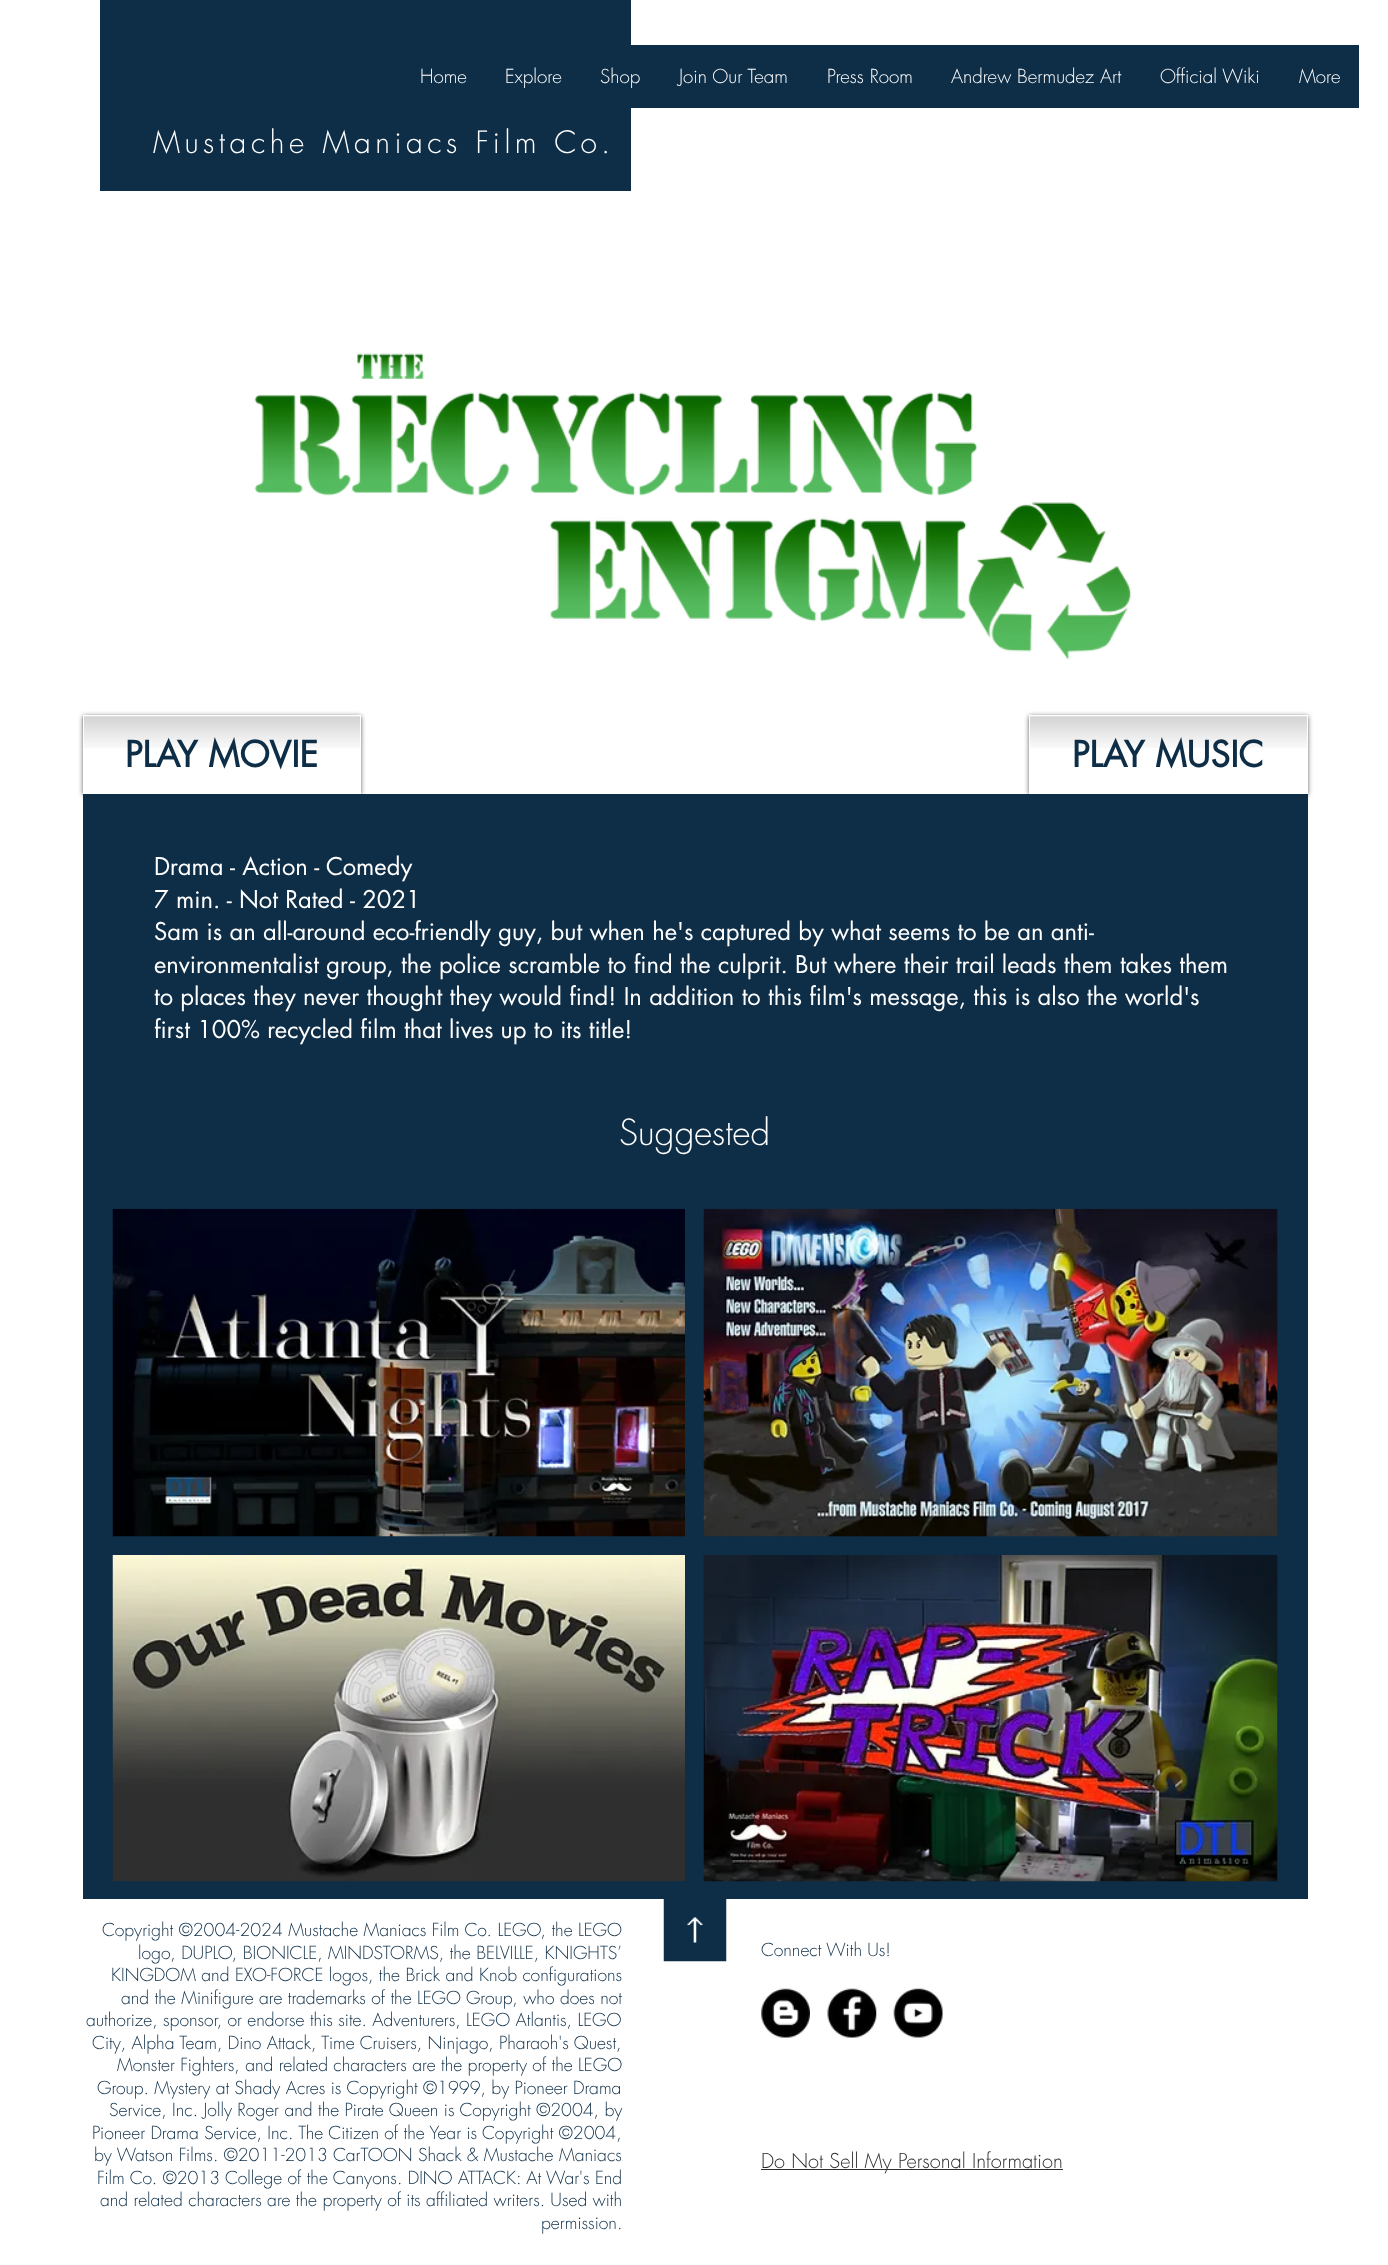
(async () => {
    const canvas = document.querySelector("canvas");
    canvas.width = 1388;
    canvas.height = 2265;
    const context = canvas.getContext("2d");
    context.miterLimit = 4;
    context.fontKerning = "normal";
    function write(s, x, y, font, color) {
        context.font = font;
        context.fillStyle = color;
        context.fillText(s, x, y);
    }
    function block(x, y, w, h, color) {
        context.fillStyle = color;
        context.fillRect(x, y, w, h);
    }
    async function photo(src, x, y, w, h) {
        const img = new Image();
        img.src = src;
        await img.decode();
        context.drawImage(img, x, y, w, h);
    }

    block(0, 0, 1388, 2265, "rgb(255, 255, 255)");
    block(631, 45, 728, 63, "rgb(14, 46, 71)");
    block(100, 0, 531, 191, "rgb(14, 46, 71)");
    write("Home", 420, 83, "300 18.75px futura", "rgb(255, 255, 255)");
    write("Explore", 505, 83, "300 18.75px futura", "rgb(255, 255, 255)");
    write("Shop", 600, 83, "300 18.75px futura", "rgb(255, 255, 255)");
    write("Join Our Team", 679, 83, "300 18.75px futura", "rgb(255, 255, 255)");
    write("Press Room", 827, 83, "300 18.75px futura", "rgb(255, 255, 255)");
    write("Andrew Bermudez Art", 951, 83, "300 18.75px futura", "rgb(255, 255, 255)");
    write("Official Wiki", 1160, 83, "300 18.75px futura", "rgb(255, 255, 255)");
    write("More", 1299, 83, "300 18.75px futura", "rgb(255, 255, 255)");
    context.letterSpacing = "4.5px";
    write("Mustache Maniacs Film Co.", 153, 153, "300 30px futura", "rgb(255, 255, 255)");
    await photo("media/1.png", 254, 353, 878, 307);
    context.fillStyle = "rgba(0, 0, 0, 0.6)";
    context.filter = "blur(2.5px)";
    context.beginPath();
    context.rect(83, 716, 278, 79);
    context.fill();
    context.filter = "none";
    block(84, 716, 276, 77, "rgb(255, 255, 255)");
    await photo("media/2.png", 82, 716, 280, 32);
    context.strokeStyle = "rgb(255, 255, 255)";
    context.strokeRect(83.5, 715.5, 277, 78);
    context.letterSpacing = "0px";
    write("PLAY MOVIE", 125, 767, "bold 35px futura", "rgb(14, 46, 71)");
    context.fillStyle = "rgba(0, 0, 0, 0.6)";
    context.filter = "blur(2.5px)";
    context.beginPath();
    context.rect(1029, 716, 279, 79);
    context.fill();
    context.filter = "none";
    block(1030, 716, 277, 77, "rgb(255, 255, 255)");
    await photo("media/3.png", 1028, 716, 279, 32);
    context.strokeRect(1029.5, 715.5, 278, 78);
    write("PLAY MUSIC", 1072, 767, "bold 35px futura", "rgb(14, 46, 71)");
    block(83, 794, 1225, 1105, "rgb(14, 46, 71)");
    write("Drama - Action - Comedy", 154, 875, "23.75px futura", "rgb(255, 255, 255)");
    write("7 min. - Not Rated - 2021", 154, 908, "23.75px futura", "rgb(255, 255, 255)");
    write("Sam is an all-around eco-friendly guy, but when he's captured by what seems to be an anti-", 154, 940, "23.75px futura", "rgb(255, 255, 255)");
    write("environmentalist group, the police scramble to find the culprit. But where their trail leads them takes them", 154, 973, "23.75px futura", "rgb(255, 255, 255)");
    write("to places they never thought they would find! In addition to this film's message, this is also the world's", 154, 1005, "23.75px futura", "rgb(255, 255, 255)");
    write("first 100% recycled film that lives up to its title!", 154, 1038, "23.75px futura", "rgb(255, 255, 255)");
    write("Suggested", 619, 1145, "300 35px futura", "rgb(255, 255, 255)");
    await photo("media/4.png", 112, 1208, 573, 329);
    await photo("media/5.png", 703, 1208, 575, 329);
    await photo("media/6.png", 112, 1555, 573, 327);
    await photo("media/7.png", 703, 1555, 575, 327);
    write("Copyright ©2004-2024 Mustache Maniacs Film Co. LEGO, the LEGO", 102, 1936, "300 17.5px futura", "rgb(14, 46, 71)");
    write("logo, DUPLO, BIONICLE, MINDSTORMS, the BELVILLE, KNIGHTS’", 138, 1959, "300 17.5px futura", "rgb(14, 46, 71)");
    write("KINGDOM and EXO-FORCE logos, the Brick and Knob configurations", 111, 1981, "300 17.5px futura", "rgb(14, 46, 71)");
    write("and the Minifigure are trademarks of the LEGO Group, who does not", 121, 2004, "300 17.5px futura", "rgb(14, 46, 71)");
    write("authorize, sponsor, or endorse this site. Adventurers, LEGO Atlantis, LEGO", 86, 2026, "300 17.5px futura", "rgb(14, 46, 71)");
    write("City, Alpha Team, Dino Attack, Time Cruisers, Ninjago, Pharaoh's Quest,", 92, 2049, "300 17.5px futura", "rgb(14, 46, 71)");
    write("Monster Fighters, and related characters are the property of the LEGO", 117, 2071, "300 17.5px futura", "rgb(14, 46, 71)");
    write("Group. Mystery at Shady Acres is Copyright ©1999, by Pioneer Drama", 97, 2094, "300 17.5px futura", "rgb(14, 46, 71)");
    write("Service, Inc. Jolly Roger and the Pirate Queen is Copyright ©2004, by", 109, 2116, "300 17.5px futura", "rgb(14, 46, 71)");
    write("Pioneer Drama Service, Inc. The Citizen of the Year is Copyright ©2004,", 92, 2139, "300 17.5px futura", "rgb(14, 46, 71)");
    write("by Watson Films. ©2011-2013 CarTOON Shack & Mustache Maniacs", 94, 2161, "300 17.5px futura", "rgb(14, 46, 71)");
    write("Film Co. ©2013 College of the Canyons. DINO ATTACK: At War's End", 97, 2184, "300 17.5px futura", "rgb(14, 46, 71)");
    write("and related characters are the property of its affiliated writers. Used with", 100, 2206, "300 17.5px futura", "rgb(14, 46, 71)");
    write("permission.", 541, 2229, "300 17.5px futura", "rgb(14, 46, 71)");
    await photo("media/8.png", 663, 1899, 64, 63);
    write("Connect With Us!", 761, 1956, "300 17.5px futura", "rgb(14, 46, 71)");
    await photo("media/9.png", 761, 1988, 49, 50);
    await photo("media/10.png", 827, 1988, 50, 50);
    await photo("media/11.png", 893, 1988, 50, 50);
    block(761, 2169, 302, 1, "rgb(47, 46, 46)");
    write("Do Not Sell My Personal Information", 761, 2168, "300 20px futura", "rgb(47, 46, 46)");
})();
